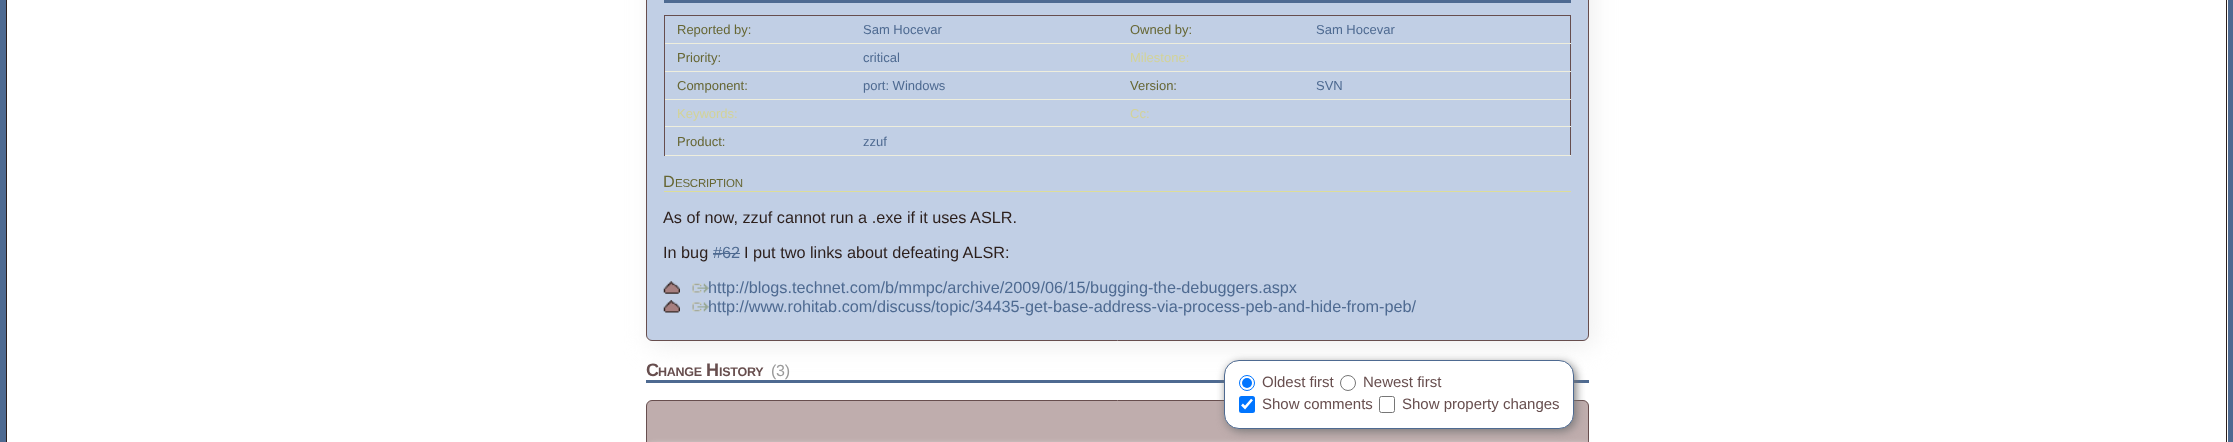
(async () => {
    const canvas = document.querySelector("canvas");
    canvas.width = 2233;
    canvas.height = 442;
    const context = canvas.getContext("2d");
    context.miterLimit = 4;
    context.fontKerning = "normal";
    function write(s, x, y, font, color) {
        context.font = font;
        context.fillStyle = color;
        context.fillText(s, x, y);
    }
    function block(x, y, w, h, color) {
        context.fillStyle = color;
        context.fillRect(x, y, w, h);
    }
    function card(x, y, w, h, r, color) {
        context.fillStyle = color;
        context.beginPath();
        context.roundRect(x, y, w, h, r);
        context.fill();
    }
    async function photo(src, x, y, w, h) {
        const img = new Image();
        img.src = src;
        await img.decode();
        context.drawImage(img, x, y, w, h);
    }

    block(0, 0, 2233, 442, "rgb(78, 106, 145)");
    block(7, 0, 2221, 442, "rgb(255, 255, 255)");
    block(2226, 0, 1, 442, "rgb(44, 31, 28)");
    block(6, 0, 1, 442, "rgb(44, 31, 28)");
    block(646, 380, 943, 3, "rgb(78, 106, 145)");
    context.fillStyle = "rgb(238, 238, 238)";
    context.filter = "blur(12px)";
    context.beginPath();
    context.roundRect(650, -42, 943, 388, 6);
    context.fill();
    context.filter = "none";
    context.fillStyle = "rgb(193, 207, 229)";
    context.beginPath();
    context.roundRect(646.5, -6.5, 942, 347, 5.5);
    context.fill();
    context.strokeStyle = "rgb(103, 78, 78)";
    context.stroke();
    block(664, 0, 907, 3, "rgb(78, 106, 145)");
    block(664, 15, 907, 1, "rgb(103, 78, 78)");
    block(1570, 15, 1, 141, "rgb(103, 78, 78)");
    block(664, 155, 907, 1, "rgb(238, 238, 221)");
    block(664, 126, 1, 30, "rgb(103, 78, 78)");
    block(664, 126, 907, 1, "rgb(238, 238, 221)");
    block(664, 99, 1, 29, "rgb(103, 78, 78)");
    block(664, 99, 907, 1, "rgb(238, 238, 221)");
    block(664, 71, 1, 29, "rgb(103, 78, 78)");
    block(664, 71, 907, 1, "rgb(238, 238, 221)");
    block(664, 43, 1, 30, "rgb(103, 78, 78)");
    block(664, 43, 907, 1, "rgb(238, 238, 221)");
    block(664, 15, 1, 29, "rgb(103, 78, 78)");
    write("Reported by:", 677, 34, "13px Liberation Sans", "rgb(102, 102, 51)");
    write("Sam Hocevar", 863, 34, "13px Liberation Sans", "rgb(78, 106, 145)");
    write("Owned by:", 1130, 34, "13px Liberation Sans", "rgb(102, 102, 51)");
    write("Sam Hocevar", 1316, 34, "13px Liberation Sans", "rgb(78, 106, 145)");
    write("Priority:", 677, 62, "13px Liberation Sans", "rgb(102, 102, 51)");
    write("critical", 863, 62, "13px Liberation Sans", "rgb(78, 106, 145)");
    write("Milestone:", 1130, 62, "13px Liberation Sans", "rgb(211, 211, 152)");
    write("Component:", 677, 90, "13px Liberation Sans", "rgb(102, 102, 51)");
    write("port: Windows", 863, 90, "13px Liberation Sans", "rgb(78, 106, 145)");
    write("Version:", 1130, 90, "13px Liberation Sans", "rgb(102, 102, 51)");
    write("SVN", 1316, 90, "13px Liberation Sans", "rgb(78, 106, 145)");
    write("Keywords:", 677, 118, "13px Liberation Sans", "rgb(211, 211, 152)");
    write("Cc:", 1130, 118, "13px Liberation Sans", "rgb(211, 211, 152)");
    write("Product:", 677, 146, "13px Liberation Sans", "rgb(102, 102, 51)");
    write("zzuf", 863, 146, "13px Liberation Sans", "rgb(78, 106, 145)");
    block(664, 191, 907, 1, "rgb(221, 221, 153)");
    context.letterSpacing = "-0.25px";
    write("D", 663, 187, "16.25px Liberation Sans", "rgb(102, 102, 51)");
    write("ESCRIPTION", 675, 187, "11.5px Liberation Sans", "rgb(102, 102, 51)");
    context.letterSpacing = "0px";
    write("As of now, zzuf cannot run a .exe if it uses ASLR.", 663, 223, "16.25px Liberation Sans", "rgb(44, 31, 28)");
    write("In bug", 663, 258, "16.25px Liberation Sans", "rgb(44, 31, 28)");
    write("#62", 713, 258, "16.25px Liberation Sans", "rgb(78, 106, 145)");
    block(713, 253, 27, 1, "rgb(78, 106, 145)");
    write("I put two links about defeating ALSR:", 744, 258, "16.25px Liberation Sans", "rgb(44, 31, 28)");
    await photo("media/1.png", 663, 281, 17, 13);
    await photo("media/2.png", 692, 283, 17, 10);
    write("http://blogs.technet.com/b/mmpc/archive/2009/06/15/bugging-the-debuggers.aspx", 708, 293, "16.25px Liberation Sans", "rgb(78, 106, 145)");
    await photo("media/3.png", 663, 300, 17, 13);
    await photo("media/4.png", 692, 302, 17, 10);
    write("http://www.rohitab.com/discuss/topic/34435-get-base-address-via-process-peb-and-hide-from-peb/", 708, 312, "16.25px Liberation Sans", "rgb(78, 106, 145)");
    context.letterSpacing = "-0.25px";
    write("C", 646, 376, "bold 18px Liberation Sans", "rgb(103, 78, 78)");
    write("HANGE", 658, 376, "bold 12.5px Liberation Sans", "rgb(103, 78, 78)");
    write("H", 706, 376, "bold 18px Liberation Sans", "rgb(103, 78, 78)");
    write("ISTORY", 719, 376, "bold 12.5px Liberation Sans", "rgb(103, 78, 78)");
    write("(3)", 771, 376, "16px Liberation Sans", "rgb(153, 153, 153)");
    context.fillStyle = "rgb(191, 173, 173)";
    context.beginPath();
    context.roundRect(646.5, 400.5, 942, 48, 5.5);
    context.fill();
    context.stroke();
    context.fillStyle = "rgb(119, 119, 119)";
    context.filter = "blur(5px)";
    context.beginPath();
    context.roundRect(1226, 363, 350, 68, 15);
    context.fill();
    context.filter = "none";
    context.fillStyle = "rgb(255, 255, 255)";
    context.beginPath();
    context.roundRect(1224.5, 360.5, 349, 68, 14.5);
    context.fill();
    context.strokeStyle = "rgb(78, 106, 145)";
    context.stroke();
    context.beginPath();
    context.arc(1247, 383, 7.5, 0, Math.PI * 2);
    context.strokeStyle = "rgb(0, 117, 255)";
    context.stroke();
    context.fillStyle = "rgb(0, 117, 255)";
    context.beginPath();
    context.arc(1247, 383, 5, 0, Math.PI * 2);
    context.fill();
    context.letterSpacing = "0px";
    write("Oldest first", 1262, 387, "15px Liberation Sans", "rgb(103, 78, 78)");
    context.beginPath();
    context.arc(1348, 383, 7.5, 0, Math.PI * 2);
    context.strokeStyle = "rgb(118, 118, 118)";
    context.stroke();
    write("Newest first", 1363, 387, "15px Liberation Sans", "rgb(103, 78, 78)");
    card(1239, 396, 16, 17, 2.5, "rgb(0, 117, 255)");
    context.beginPath();
    context.moveTo(1242, 404.5);
    context.lineTo(1245, 407.5);
    context.lineTo(1252, 399.5);
    context.strokeStyle = "rgb(255, 255, 255)";
    context.lineWidth = 2.6;
    context.stroke();
    write("Show comments", 1262, 409, "15px Liberation Sans", "rgb(103, 78, 78)");
    context.beginPath();
    context.roundRect(1379.5, 396.5, 15, 16, 2);
    context.strokeStyle = "rgb(118, 118, 118)";
    context.lineWidth = 1;
    context.stroke();
    write("Show property changes", 1402, 409, "15px Liberation Sans", "rgb(103, 78, 78)");
    context.fillStyle = "rgb(242, 242, 242)";
    context.filter = "blur(3px)";
    context.beginPath();
    context.rect(649, 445, 940, 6);
    context.fill();
    context.filter = "none";
})();
